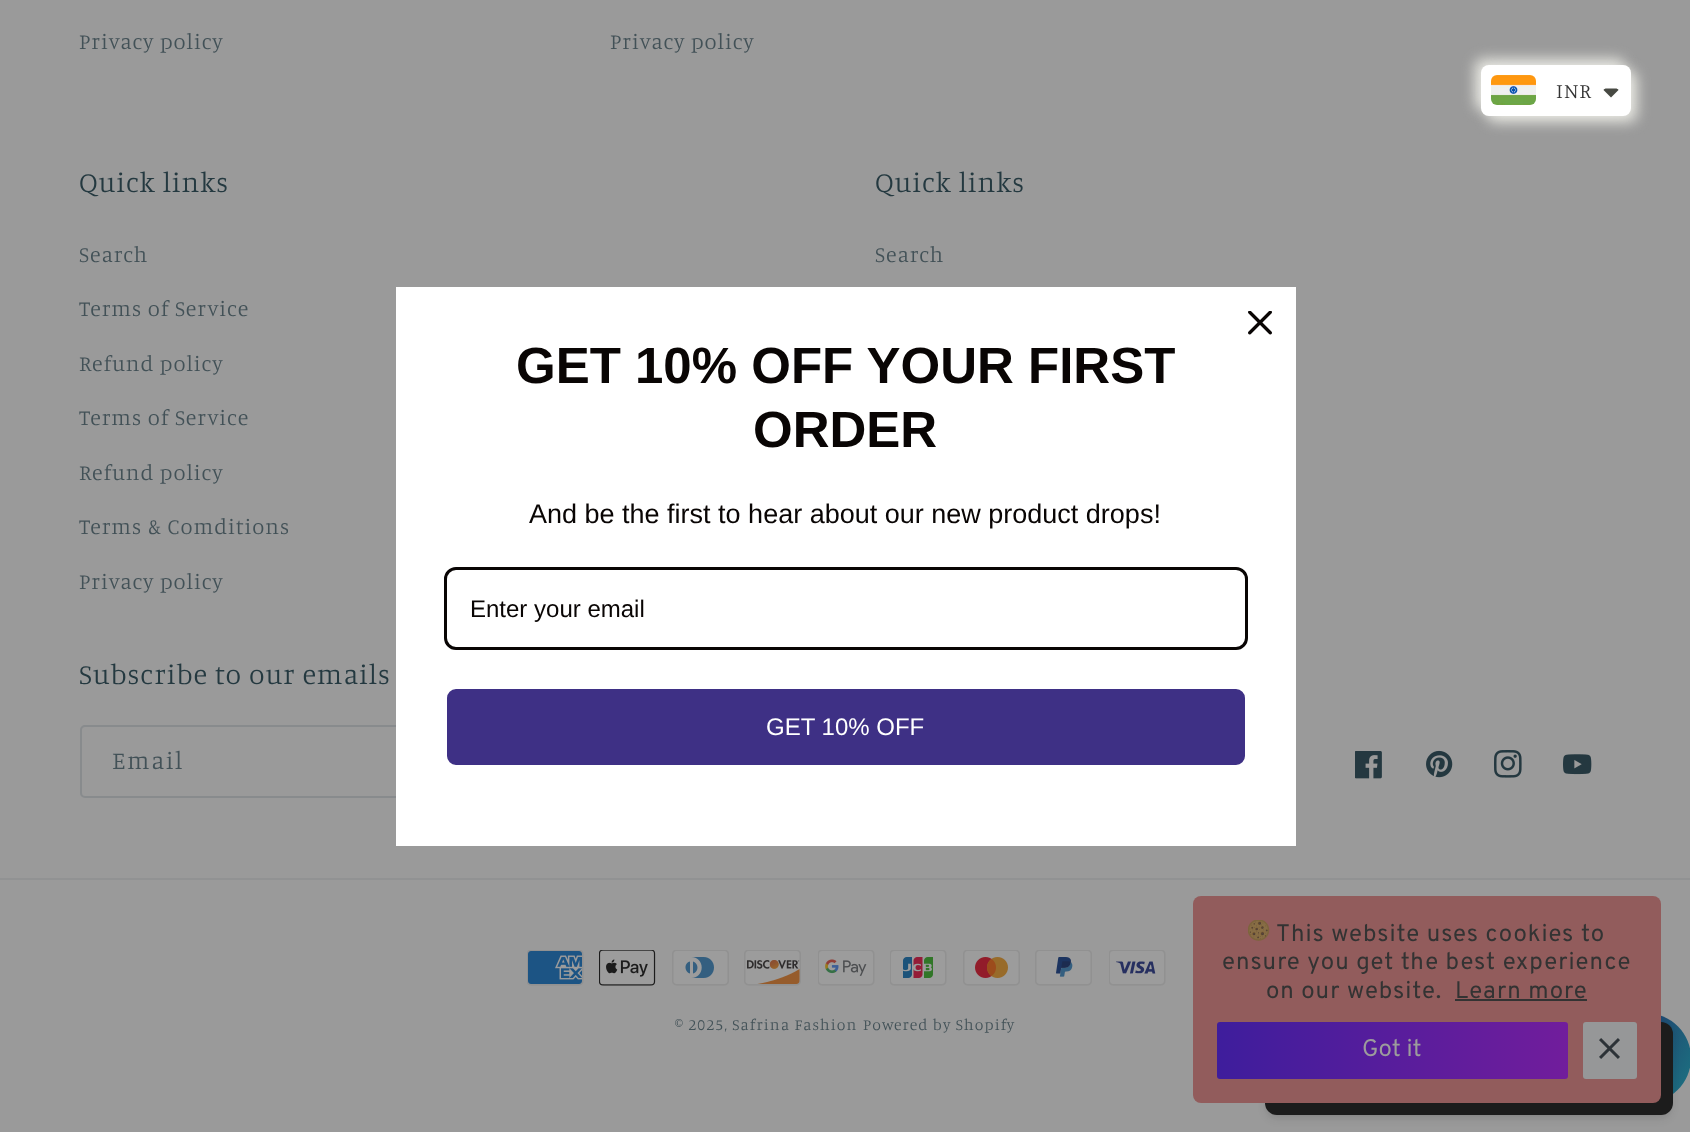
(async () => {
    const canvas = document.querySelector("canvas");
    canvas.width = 1690;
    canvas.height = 1132;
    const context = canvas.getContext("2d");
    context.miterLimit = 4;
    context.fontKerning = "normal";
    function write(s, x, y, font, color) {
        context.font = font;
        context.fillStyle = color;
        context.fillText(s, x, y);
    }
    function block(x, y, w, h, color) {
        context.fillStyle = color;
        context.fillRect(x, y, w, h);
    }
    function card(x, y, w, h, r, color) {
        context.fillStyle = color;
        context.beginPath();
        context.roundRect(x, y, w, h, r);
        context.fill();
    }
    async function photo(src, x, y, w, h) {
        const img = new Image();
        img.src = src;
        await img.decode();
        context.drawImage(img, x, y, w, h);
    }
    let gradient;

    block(0, 0, 1690, 1132, "rgb(154, 154, 154)");
    context.letterSpacing = "0.95px";
    write("Privacy policy", 79, 49, "300 22px Manuale", "rgb(66, 81, 87)");
    write("Privacy policy", 610, 49, "300 22px Manuale", "rgb(66, 81, 87)");
    write("Quick links", 79, 192, "300 28.4px Manuale", "rgb(36, 57, 64)");
    write("Search", 79, 262, "300 22px Manuale", "rgb(66, 81, 87)");
    write("Terms of Service", 79, 316, "300 22px Manuale", "rgb(66, 81, 87)");
    write("Refund policy", 79, 371, "300 22px Manuale", "rgb(66, 81, 87)");
    write("Terms of Service", 79, 425, "300 22px Manuale", "rgb(66, 81, 87)");
    write("Refund policy", 79, 480, "300 22px Manuale", "rgb(66, 81, 87)");
    write("Terms & Comditions", 79, 534, "300 22px Manuale", "rgb(66, 81, 87)");
    write("Privacy policy", 79, 589, "300 22px Manuale", "rgb(66, 81, 87)");
    write("Quick links", 875, 192, "300 28.4px Manuale", "rgb(36, 57, 64)");
    write("Search", 875, 262, "300 22px Manuale", "rgb(66, 81, 87)");
    write("Subscribe to our emails", 79, 684, "300 28.4px Manuale", "rgb(36, 57, 64)");
    context.beginPath();
    context.roundRect(81, 726, 565, 71, 4);
    context.strokeStyle = "rgba(36, 57, 64, 0.15)";
    context.lineWidth = 2;
    context.stroke();
    context.letterSpacing = "1.5px";
    write("Email", 112, 769, "300 25px Manuale", "rgb(66, 81, 87)");
    await photo("media/1.png", 1355, 751, 27, 28);
    await photo("media/2.png", 1426, 750, 27, 28);
    await photo("media/3.png", 1494, 750, 28, 28);
    await photo("media/4.png", 1563, 754, 29, 21);
    block(0, 878, 1690, 2, "rgb(145, 146, 147)");
    await photo("media/5.png", 527, 950, 57, 36);
    await photo("media/6.png", 599, 950, 57, 36);
    await photo("media/7.png", 672, 950, 57, 36);
    await photo("media/8.png", 744, 950, 57, 36);
    await photo("media/9.png", 818, 950, 57, 36);
    await photo("media/10.png", 890, 950, 57, 36);
    await photo("media/11.png", 963, 950, 57, 36);
    await photo("media/12.png", 1035, 950, 57, 36);
    await photo("media/13.png", 1109, 950, 57, 36);
    context.letterSpacing = "1.1px";
    write("© 2025, Safrina Fashion", 675, 1030, "300 15.75px Manuale", "rgb(66, 81, 87)");
    write("Powered by Shopify", 863, 1030, "300 15.75px Manuale", "rgb(66, 81, 87)");
    context.fillStyle = "rgb(232, 232, 226)";
    context.filter = "blur(7px)";
    context.beginPath();
    context.roundRect(1475, 59, 150, 51, 8);
    context.fill();
    context.filter = "none";
    context.filter = "blur(7px)";
    context.beginPath();
    context.roundRect(1487, 71, 150, 51, 8);
    context.fill();
    context.filter = "none";
    card(1481, 65, 150, 51, 8, "rgb(255, 255, 255)");
    await photo("media/14.png", 1491, 75, 45, 30);
    context.letterSpacing = "0.95px";
    write("INR", 1556, 98, "300 21px Manuale", "rgb(51, 51, 51)");
    context.fillStyle = "rgb(71, 73, 66)";
    context.beginPath();
    context.moveTo(1606.5, 88.5);
    context.bezierCurveTo(1605, 88.5, 1604, 89, 1603.5, 90);
    context.lineTo(1611, 97.5);
    context.lineTo(1618.5, 90);
    context.bezierCurveTo(1618, 89, 1617, 88.5, 1615.5, 88.5);
    context.closePath();
    context.fill();
    block(396, 287, 900, 559, "rgb(255, 255, 255)");
    await photo("media/15.png", 1248, 311, 24, 24);
    context.letterSpacing = "0px";
    write("GET 10% OFF YOUR FIRST", 516, 383, "bold 51px Liberation Sans", "rgb(9, 5, 4)");
    write("ORDER", 753, 447, "bold 51px Liberation Sans", "rgb(9, 5, 4)");
    write("And be the first to hear about our new product drops!", 529, 523, "27px Liberation Sans", "rgb(9, 5, 4)");
    context.beginPath();
    context.roundRect(445.5, 568.5, 801, 80, 10.5);
    context.strokeStyle = "rgb(9, 5, 4)";
    context.lineWidth = 3;
    context.stroke();
    write("Enter your email", 470, 617, "24px Liberation Sans", "rgb(9, 5, 4)");
    context.fillStyle = "rgb(62, 48, 133)";
    context.beginPath();
    context.roundRect(445.5, 687.5, 801, 79, 10.5);
    context.fill();
    context.strokeStyle = "rgb(255, 255, 255)";
    context.stroke();
    write("GET 10% OFF", 766, 735, "24px Liberation Sans", "rgb(255, 255, 255)");
    gradient = context.createLinearGradient(1591, 1032, 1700, 1083);
    gradient.addColorStop(0, "rgb(33, 35, 96)");
    gradient.addColorStop(1, "rgb(28, 117, 131)");
    context.fillStyle = gradient;
    context.beginPath();
    context.arc(1646, 1058, 45, 0, Math.PI * 2);
    context.fill();
    context.fillStyle = "rgba(28, 28, 28, 0.1)";
    context.filter = "blur(3px)";
    context.beginPath();
    context.roundRect(1268, 1028, 402, 87, 9);
    context.fill();
    context.filter = "none";
    context.filter = "blur(4.5px)";
    context.beginPath();
    context.roundRect(1266, 1029, 405, 90, 11);
    context.fill();
    context.filter = "none";
    card(1265, 1022, 408, 93, 12, "rgb(28, 28, 28)");
    card(1193, 896, 468, 207, 8, "rgb(146, 92, 92)");
    await photo("media/16.png", 1248, 920, 22, 21);
    context.letterSpacing = "0.95px";
    write("This website uses cookies to", 1276, 941, "24px Overpass", "rgb(51, 51, 51)");
    write("ensure you get the best experience", 1222, 969, "24px Overpass", "rgb(51, 51, 51)");
    write("on our website.", 1266, 998, "24px Overpass", "rgb(51, 51, 51)");
    write("Learn more", 1455, 998, "24px Overpass", "rgb(51, 51, 51)");
    block(1455, 999, 132, 2, "rgb(51, 51, 51)");
    gradient = context.createLinearGradient(1217, 1050, 1568, 1050);
    gradient.addColorStop(0, "rgb(62, 29, 156)");
    gradient.addColorStop(1, "rgb(113, 29, 156)");
    context.fillStyle = gradient;
    context.beginPath();
    context.roundRect(1217, 1022, 351, 57, 3);
    context.fill();
    context.letterSpacing = "0px";
    write("Got it", 1362, 1056, "24px Overpass", "rgb(156, 156, 156)");
    card(1583, 1022, 54, 57, 3, "rgb(150, 151, 152)");
    await photo("media/17.png", 1599, 1038, 21, 21);
})();
